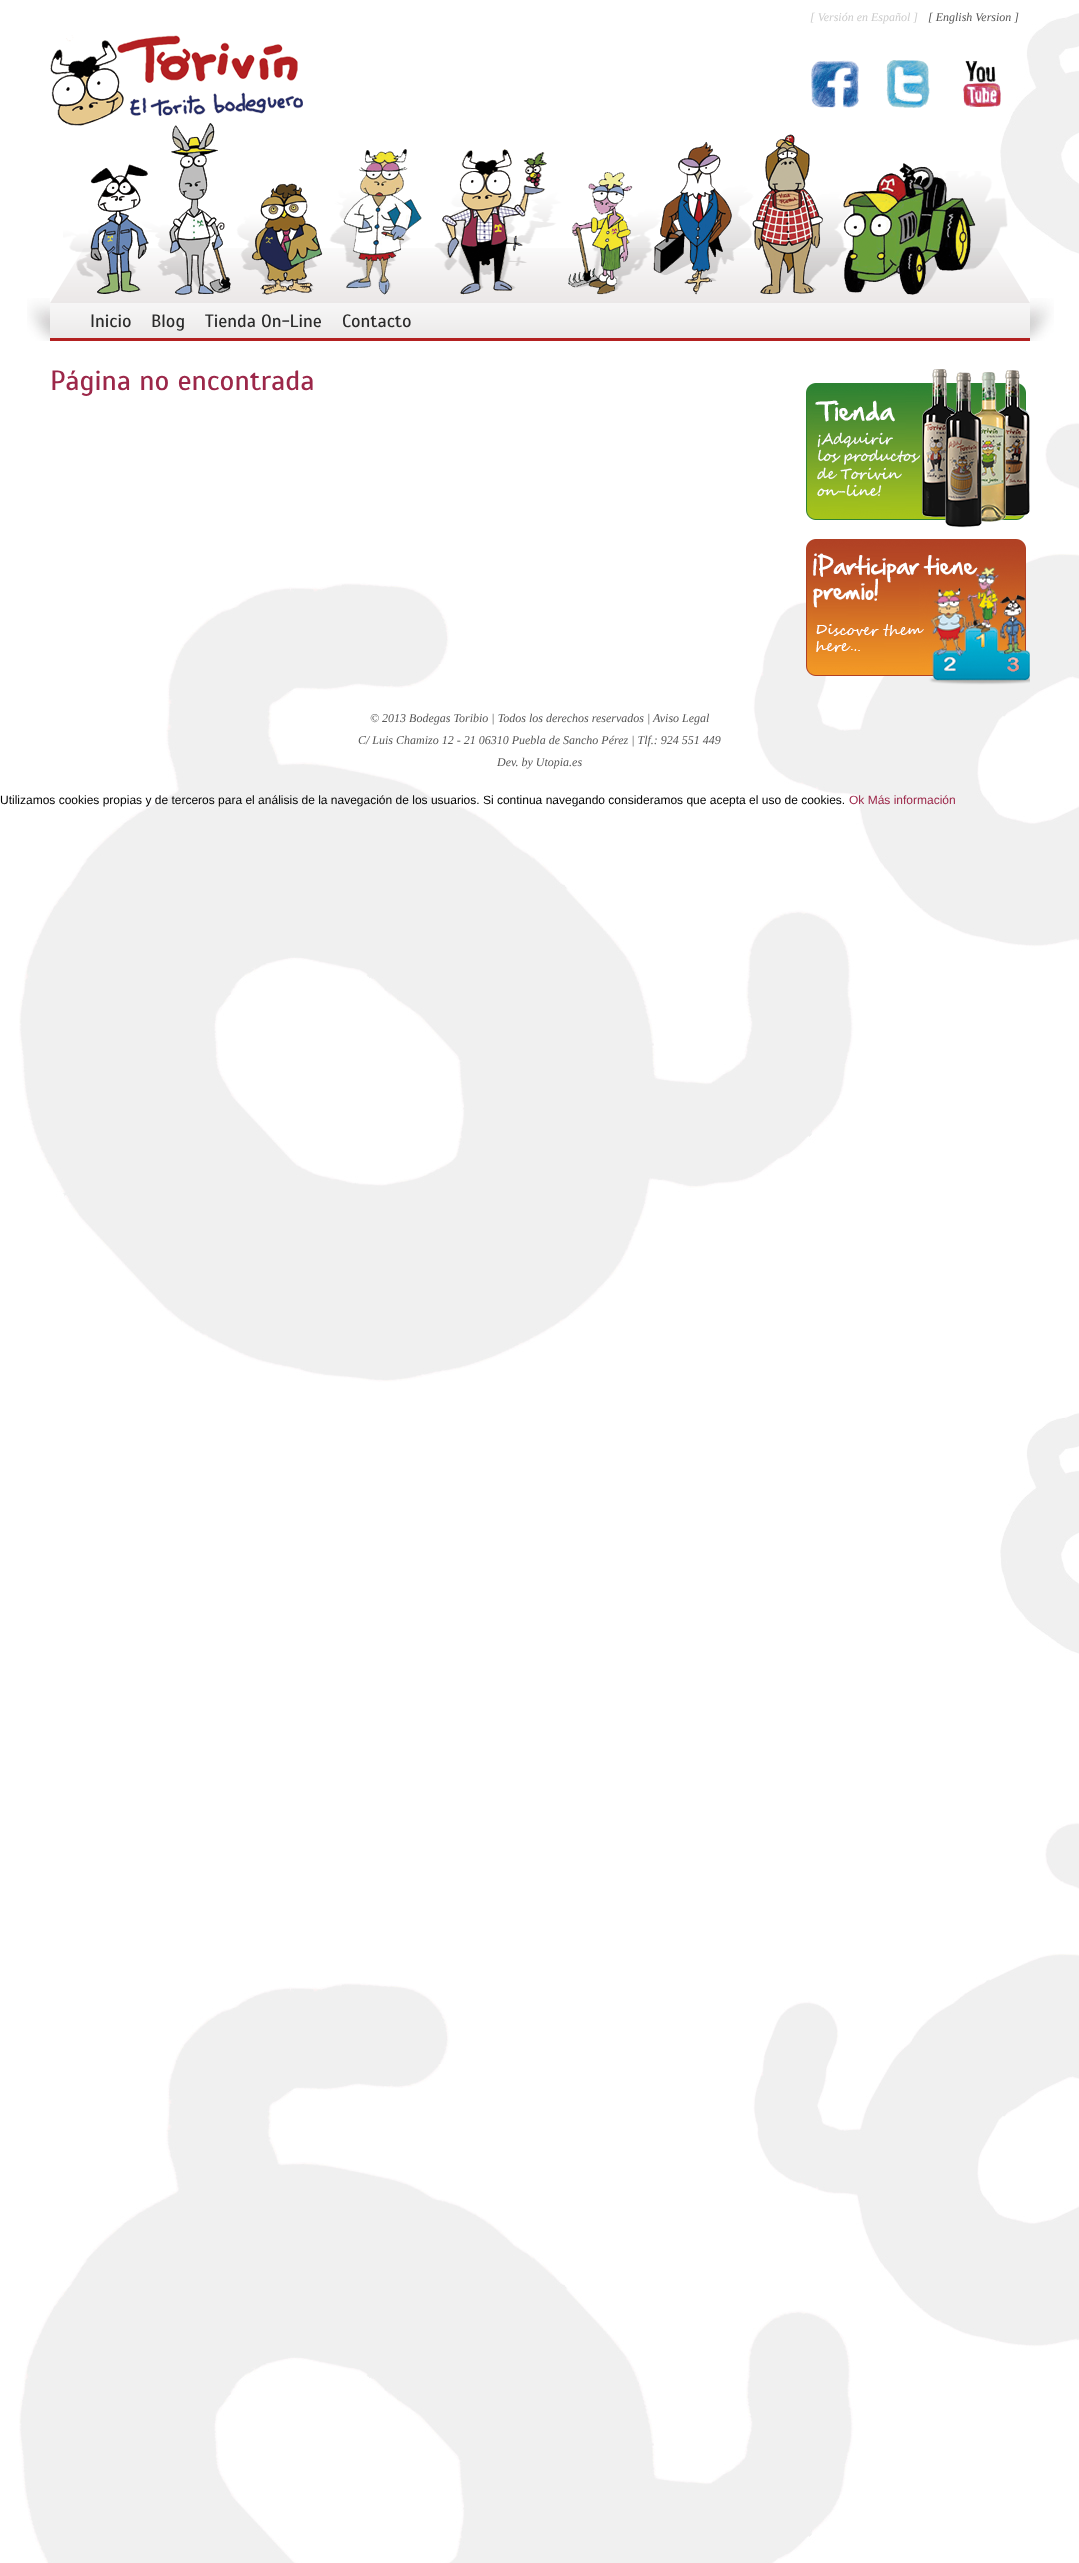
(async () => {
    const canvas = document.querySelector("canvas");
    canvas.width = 1079;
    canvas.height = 2563;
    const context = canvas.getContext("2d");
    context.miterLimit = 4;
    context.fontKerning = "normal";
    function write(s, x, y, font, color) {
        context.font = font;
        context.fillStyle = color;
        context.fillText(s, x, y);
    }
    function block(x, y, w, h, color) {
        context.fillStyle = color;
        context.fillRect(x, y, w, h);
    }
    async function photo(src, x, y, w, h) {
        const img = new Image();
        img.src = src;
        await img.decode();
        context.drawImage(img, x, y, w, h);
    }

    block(0, 0, 1079, 2563, "rgb(255, 255, 255)");
    await photo("media/1.png", 19, 13, 1060, 2550);
    write("[ Versión en Español ]", 810, 21, "italic 12px Liberation Serif", "rgb(204, 204, 204)");
    write("[ English Version ]", 928, 21, "italic 12px Liberation Serif", "rgb(86, 86, 86)");
    await photo("media/2.png", 811, 60, 48, 48);
    await photo("media/3.png", 886, 60, 44, 48);
    await photo("media/4.png", 963, 60, 38, 47);
    await photo("media/5.png", 50, 35, 253, 91);
    await photo("media/6.png", 27, 298, 1027, 43);
    await photo("media/7.png", 50, 248, 980, 55);
    await photo("media/17.png", 63, 171, 945, 122);
    await photo("media/8.png", 90, 164, 59, 130);
    await photo("media/9.png", 169, 123, 62, 172);
    await photo("media/10.png", 251, 183, 72, 112);
    await photo("media/11.png", 343, 149, 79, 146);
    await photo("media/12.png", 442, 149, 105, 146);
    await photo("media/13.png", 568, 172, 65, 123);
    await photo("media/14.png", 653, 142, 79, 153);
    await photo("media/15.png", 752, 134, 71, 161);
    await photo("media/16.png", 843, 163, 133, 132);
    await photo("media/18.png", 50, 303, 980, 35);
    block(50, 338, 980, 3, "rgb(179, 33, 33)");
    write("Inicio", 90, 327, "18px Scada", "rgb(43, 43, 43)");
    write("Blog", 151, 327, "18px Scada", "rgb(43, 43, 43)");
    write("Tienda On-Line", 205, 327, "18px Scada", "rgb(43, 43, 43)");
    write("Contacto", 342, 327, "18px Scada", "rgb(43, 43, 43)");
    write("Página no encontrada", 50, 390, "28px Scada", "rgb(156, 39, 73)");
    await photo("media/19.png", 806, 369, 224, 159);
    await photo("media/20.png", 806, 539, 224, 146);
    write("© 2013 Bodegas Toribio | Todos los derechos reservados | Aviso Legal", 370, 722, "italic 12px Liberation Serif", "rgb(86, 86, 86)");
    write("C/ Luis Chamizo 12 - 21 06310 Puebla de Sancho Pérez | Tlf.: 924 551 449", 358, 744, "italic 12px Liberation Serif", "rgb(86, 86, 86)");
    write("Dev. by Utopia.es", 497, 766, "italic 12px Liberation Serif", "rgb(86, 86, 86)");
    write("Utilizamos cookies propias y de terceros para el análisis de la navegación de los usuarios. Si continua navegando consideramos que acepta el uso de cookies.", 0, 804, "12px Liberation Sans", "rgb(0, 0, 0)");
    write("Ok Más información", 849, 804, "12px Liberation Sans", "rgb(156, 39, 73)");
})();
